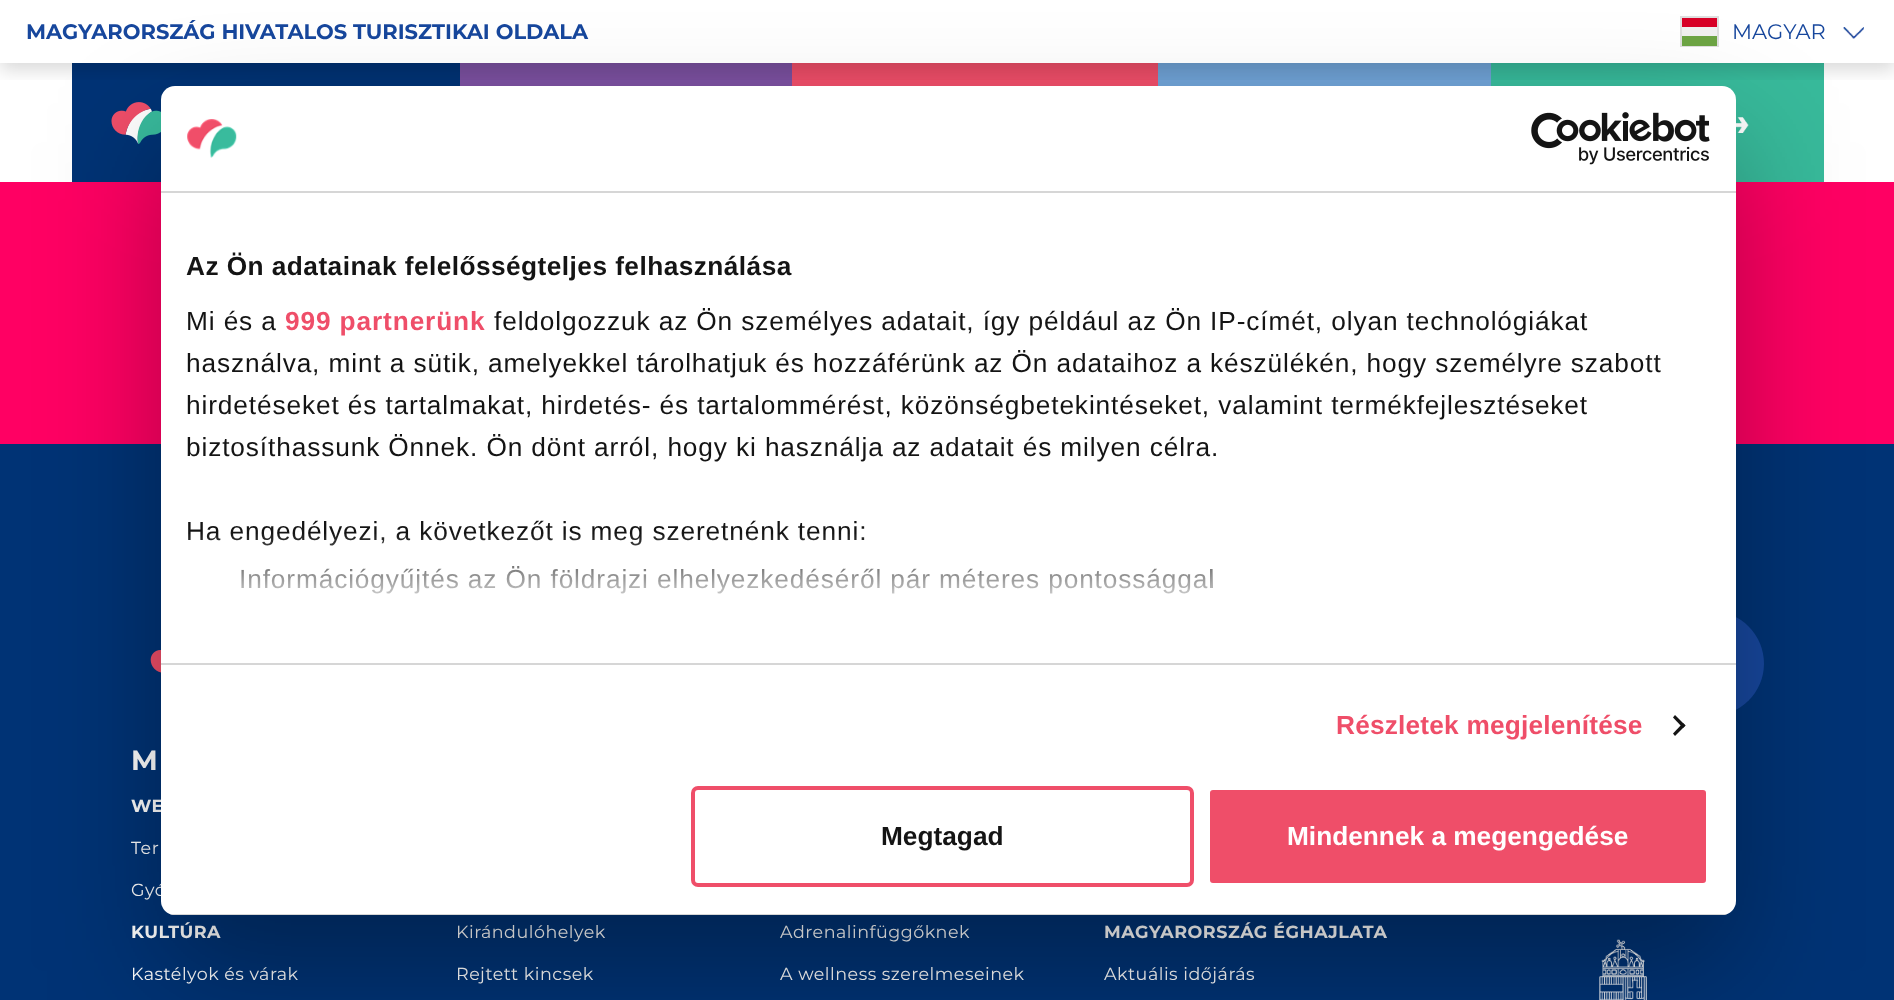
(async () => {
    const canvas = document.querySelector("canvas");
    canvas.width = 1894;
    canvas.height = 1000;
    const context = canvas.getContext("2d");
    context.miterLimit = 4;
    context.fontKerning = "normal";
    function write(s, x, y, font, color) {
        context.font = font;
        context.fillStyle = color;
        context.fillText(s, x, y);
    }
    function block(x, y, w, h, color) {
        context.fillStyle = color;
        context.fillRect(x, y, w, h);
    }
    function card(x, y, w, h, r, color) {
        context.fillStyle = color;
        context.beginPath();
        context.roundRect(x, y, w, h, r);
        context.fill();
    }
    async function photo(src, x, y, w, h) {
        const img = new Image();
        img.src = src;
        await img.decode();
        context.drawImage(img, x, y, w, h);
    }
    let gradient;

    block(0, 0, 1894, 1000, "rgb(255, 255, 255)");
    block(72, 63, 388, 119, "rgb(0, 51, 117)");
    block(460, 63, 332, 23, "rgb(124, 81, 161)");
    block(792, 63, 366, 23, "rgb(239, 78, 105)");
    block(1158, 63, 333, 23, "rgb(112, 163, 215)");
    block(1491, 63, 333, 119, "rgb(56, 186, 155)");
    context.save();
    context.beginPath();
    context.rect(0, 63, 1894, 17);
    context.clip();
    context.fillStyle = "rgba(0, 0, 0, 0.15)";
    context.filter = "blur(9px)";
    context.beginPath();
    context.rect(0, 7, 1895, 63);
    context.fill();
    context.filter = "none";
    context.restore();
    write("MAGYARORSZÁG HIVATALOS TURISZTIKAI OLDALA", 26, 39, "bold 21px Montserrat", "rgb(23, 71, 157)");
    context.strokeStyle = "rgb(223, 223, 223)";
    context.lineWidth = 2;
    context.strokeRect(1681, 17, 37, 29);
    block(1682, 27, 35, 9, "rgb(240, 240, 240)");
    block(1682, 18, 35, 9, "rgb(216, 0, 39)");
    block(1682, 36, 35, 10, "rgb(109, 165, 68)");
    write("MAGYAR", 1732, 39, "21px Montserrat", "rgb(23, 71, 157)");
    await photo("media/1.png", 1843, 27, 21, 12);
    await photo("media/2.png", 111, 102, 50, 42);
    await photo("media/3.png", 1736, 117, 13, 16);
    block(0, 182, 1894, 262, "rgb(255, 0, 99)");
    block(0, 444, 1894, 556, "rgb(0, 51, 117)");
    await photo("media/4.png", 150, 650, 11, 23);
    context.fillStyle = "rgb(23, 71, 157)";
    context.beginPath();
    context.arc(1711.5, 663.5, 52.5, 0, Math.PI * 2);
    context.fill();
    context.letterSpacing = "1px";
    write("M", 131, 770, "bold 28px Montserrat", "rgb(255, 255, 255)");
    context.letterSpacing = "0.5px";
    write("WE", 131, 812, "bold 17.5px Montserrat", "rgb(255, 255, 255)");
    write("Ter", 131, 854, "17.5px Montserrat", "rgb(255, 255, 255)");
    write("Gyó", 131, 896, "17.5px Montserrat", "rgb(255, 255, 255)");
    write("KULTÚRA", 131, 938, "bold 17.5px Montserrat", "rgb(255, 255, 255)");
    write("Kastélyok és várak", 131, 980, "17.5px Montserrat", "rgb(255, 255, 255)");
    write("Kirándulóhelyek", 456, 938, "17.5px Montserrat", "rgb(255, 255, 255)");
    write("Rejtett kincsek", 456, 980, "17.5px Montserrat", "rgb(255, 255, 255)");
    write("Adrenalinfüggőknek", 780, 938, "17.5px Montserrat", "rgb(255, 255, 255)");
    write("A wellness szerelmeseinek", 780, 980, "17.5px Montserrat", "rgb(255, 255, 255)");
    write("MAGYARORSZÁG ÉGHAJLATA", 1104, 938, "bold 17.5px Montserrat", "rgb(255, 255, 255)");
    write("Aktuális időjárás", 1104, 980, "17.5px Montserrat", "rgb(255, 255, 255)");
    await photo("media/5.png", 1599, 939, 48, 61);
    context.fillStyle = "rgba(0, 0, 0, 0.3)";
    context.filter = "blur(59.5px)";
    context.beginPath();
    context.roundRect(161, 142, 1575, 829, 14);
    context.fill();
    context.filter = "none";
    card(161, 86, 1575, 829, 14, "rgb(255, 255, 255)");
    block(161, 191, 1575, 2, "rgb(214, 214, 214)");
    await photo("media/6.png", 187, 119, 50, 39);
    await photo("media/7.png", 1531, 112, 179, 53);
    block(161, 663, 1575, 2, "rgb(214, 214, 214)");
    context.letterSpacing = "0.45px";
    write("Az Ön adatainak felelősségteljes felhasználása", 186, 275, "bold 26.25px Liberation Sans", "rgb(20, 20, 20)");
    context.letterSpacing = "0.88px";
    write("Mi és a", 186, 330, "26.25px Liberation Sans", "rgb(20, 20, 20)");
    write("999 partnerünk", 285, 330, "bold 26.25px Liberation Sans", "rgb(239, 78, 105)");
    write("feldolgozzuk az Ön személyes adatait, így például az Ön IP-címét, olyan technológiákat", 494, 330, "26.25px Liberation Sans", "rgb(20, 20, 20)");
    write("használva, mint a sütik, amelyekkel tárolhatjuk és hozzáférünk az Ön adataihoz a készülékén, hogy személyre szabott", 186, 372, "26.25px Liberation Sans", "rgb(20, 20, 20)");
    write("hirdetéseket és tartalmakat, hirdetés- és tartalommérést, közönségbetekintéseket, valamint termékfejlesztéseket", 186, 414, "26.25px Liberation Sans", "rgb(20, 20, 20)");
    write("biztosíthassunk Önnek. Ön dönt arról, hogy ki használja az adatait és milyen célra.", 186, 456, "26.25px Liberation Sans", "rgb(20, 20, 20)");
    write("Ha engedélyezi, a következőt is meg szeretnénk tenni:", 186, 540, "26.25px Liberation Sans", "rgb(20, 20, 20)");
    write("Információgyűjtés az Ön földrajzi elhelyezkedéséről pár méteres pontossággal", 239, 588, "26.25px Liberation Sans", "rgb(20, 20, 20)");
    gradient = context.createLinearGradient(937, 663, 937, 532);
    gradient.addColorStop(0, "rgb(255, 255, 255)");
    gradient.addColorStop(0.5, "rgba(255, 255, 255, 0.8)");
    gradient.addColorStop(1, "rgba(255, 255, 255, 0)");
    context.fillStyle = gradient;
    context.fillRect(188, 534, 1024, 60);
    context.letterSpacing = "0.2px";
    write("Részletek megjelenítése", 1336, 734, "bold 26.25px Liberation Sans", "rgb(239, 78, 105)");
    context.fillStyle = "rgb(20, 20, 20)";
    context.beginPath();
    context.moveTo(1675, 715);
    context.lineTo(1685.5, 725.5);
    context.lineTo(1683, 728);
    context.lineTo(1673, 717.5);
    context.closePath();
    context.fill();
    context.beginPath();
    context.moveTo(1683, 723);
    context.lineTo(1685.5, 725.5);
    context.lineTo(1675, 736);
    context.lineTo(1673, 733.5);
    context.closePath();
    context.fill();
    context.save();
    context.beginPath();
    context.roundRect(161, 86, 1575, 829, 14);
    context.clip();
    block(170, 914, 1557, 1, "rgb(214, 214, 214)");
    context.restore();
    context.beginPath();
    context.roundRect(693, 788, 499, 97, 5);
    context.strokeStyle = "rgb(239, 78, 105)";
    context.lineWidth = 4;
    context.stroke();
    context.letterSpacing = "0px";
    write("Megtagad", 881, 845, "bold 26.25px Liberation Sans", "rgb(20, 20, 20)");
    context.fillStyle = "rgb(239, 78, 105)";
    context.beginPath();
    context.roundRect(1208, 788, 500, 97, 5);
    context.fill();
    context.strokeStyle = "rgb(255, 255, 255)";
    context.stroke();
    write("Mindennek a megengedése", 1287, 845, "bold 26.25px Liberation Sans", "rgb(255, 255, 255)");
})();
